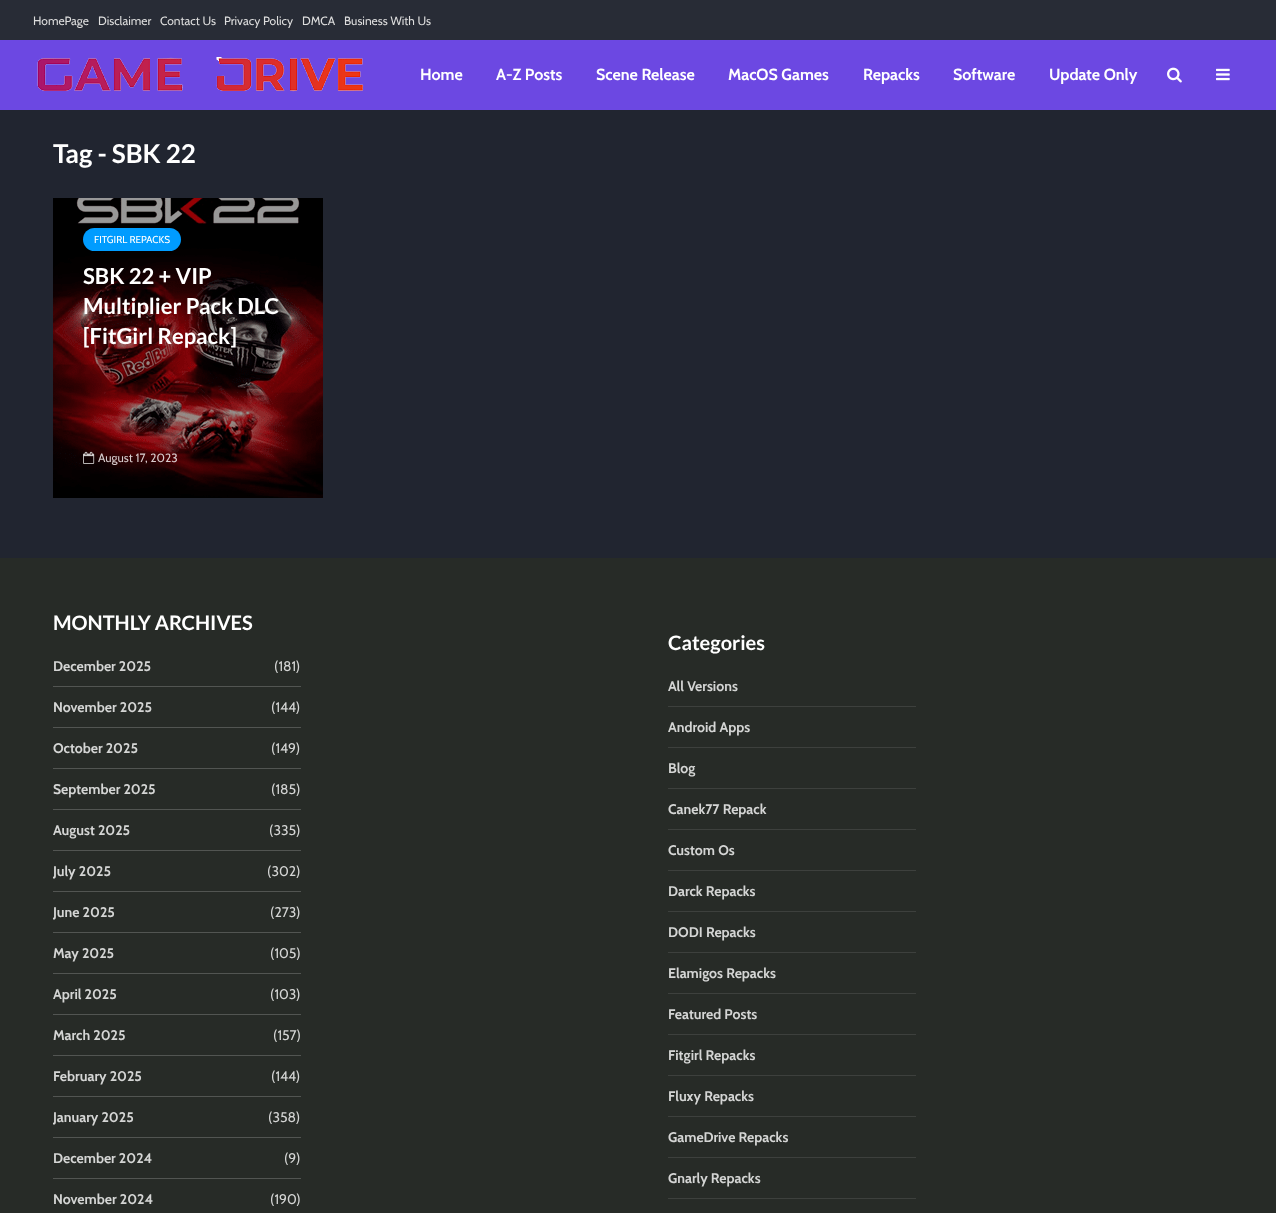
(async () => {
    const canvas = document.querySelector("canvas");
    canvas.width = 1276;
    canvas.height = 1213;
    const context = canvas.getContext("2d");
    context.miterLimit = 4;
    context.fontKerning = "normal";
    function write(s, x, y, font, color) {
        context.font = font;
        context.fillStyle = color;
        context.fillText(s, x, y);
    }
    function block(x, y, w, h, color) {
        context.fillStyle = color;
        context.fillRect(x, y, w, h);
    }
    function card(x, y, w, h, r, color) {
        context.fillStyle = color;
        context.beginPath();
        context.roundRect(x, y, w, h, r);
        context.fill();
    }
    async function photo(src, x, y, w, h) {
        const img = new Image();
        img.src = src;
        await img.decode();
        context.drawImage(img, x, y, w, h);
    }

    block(0, 0, 1276, 1213, "rgb(33, 37, 48)");
    block(0, 0, 1276, 40, "rgb(40, 44, 54)");
    write("HomePage", 33, 25, "12px Cabin", "rgb(221, 221, 221)");
    write("Disclaimer", 98, 25, "12px Cabin", "rgb(221, 221, 221)");
    write("Contact Us", 160, 25, "12px Cabin", "rgb(221, 221, 221)");
    write("Privacy Policy", 224, 25, "12px Cabin", "rgb(221, 221, 221)");
    write("DMCA", 302, 25, "12px Cabin", "rgb(221, 221, 221)");
    write("Business With Us", 344, 25, "12px Cabin", "rgb(221, 221, 221)");
    block(0, 40, 1276, 70, "rgb(108, 72, 226)");
    await photo("media/1.png", 37, 57, 327, 35);
    write("Home", 420, 80, "bold 16px Cabin", "rgb(255, 255, 255)");
    write("A-Z Posts", 496, 80, "bold 16px Cabin", "rgb(255, 255, 255)");
    write("Scene Release", 596, 80, "bold 16px Cabin", "rgb(255, 255, 255)");
    write("MacOS Games", 728, 80, "bold 16px Cabin", "rgb(255, 255, 255)");
    write("Repacks", 863, 80, "bold 16px Cabin", "rgb(255, 255, 255)");
    write("Software", 953, 80, "bold 16px Cabin", "rgb(255, 255, 255)");
    write("Update Only", 1049, 80, "bold 16px Cabin", "rgb(255, 255, 255)");
    await photo("media/2.png", 1167, 67, 15, 16);
    await photo("media/3.png", 1216, 68, 14, 13);
    write("Tag - SBK 22", 53, 163, "bold 26px Lato", "rgb(255, 255, 255)");
    await photo("media/4.png", 53, 198, 270, 300);
    card(83, 228, 98, 23, 11.5, "rgb(0, 156, 255)");
    write("FITGIRL REPACKS", 94, 243, "10px Cabin", "rgb(255, 255, 255)");
    write("SBK 22 + VIP", 83, 284, "bold 22px Lato", "rgb(255, 255, 255)");
    write("Multiplier Pack DLC", 83, 314, "bold 22px Lato", "rgb(255, 255, 255)");
    write("[FitGirl Repack]", 83, 344, "bold 22px Lato", "rgb(255, 255, 255)");
    await photo("media/5.png", 83, 451, 12, 13);
    write("August 17, 2023", 98, 462, "12px Cabin", "rgb(215, 204, 205)");
    block(0, 558, 1276, 655, "rgb(39, 43, 39)");
    write("MONTHLY ARCHIVES", 53, 630, "bold 20px Lato", "rgb(255, 255, 255)");
    block(53, 686, 248, 1, "rgb(82, 85, 82)");
    write("December 2025", 53, 671, "bold 14px Cabin", "rgb(212, 213, 212)");
    write("(181)", 274, 671, "14px Cabin", "rgb(212, 213, 212)");
    block(53, 727, 248, 1, "rgb(82, 85, 82)");
    write("November 2025", 53, 712, "bold 14px Cabin", "rgb(212, 213, 212)");
    write("(144)", 271, 712, "14px Cabin", "rgb(212, 213, 212)");
    block(53, 768, 248, 1, "rgb(82, 85, 82)");
    write("October 2025", 53, 753, "bold 14px Cabin", "rgb(212, 213, 212)");
    write("(149)", 271, 753, "14px Cabin", "rgb(212, 213, 212)");
    block(53, 809, 248, 1, "rgb(82, 85, 82)");
    write("September 2025", 53, 794, "bold 14px Cabin", "rgb(212, 213, 212)");
    write("(185)", 271, 794, "14px Cabin", "rgb(212, 213, 212)");
    block(53, 850, 248, 1, "rgb(82, 85, 82)");
    write("August 2025", 53, 835, "bold 14px Cabin", "rgb(212, 213, 212)");
    write("(335)", 269, 835, "14px Cabin", "rgb(212, 213, 212)");
    block(53, 891, 248, 1, "rgb(82, 85, 82)");
    write("July 2025", 53, 876, "bold 14px Cabin", "rgb(212, 213, 212)");
    write("(302)", 267, 876, "14px Cabin", "rgb(212, 213, 212)");
    block(53, 932, 248, 1, "rgb(82, 85, 82)");
    write("June 2025", 53, 917, "bold 14px Cabin", "rgb(212, 213, 212)");
    write("(273)", 270, 917, "14px Cabin", "rgb(212, 213, 212)");
    block(53, 973, 248, 1, "rgb(82, 85, 82)");
    write("May 2025", 53, 958, "bold 14px Cabin", "rgb(212, 213, 212)");
    write("(105)", 270, 958, "14px Cabin", "rgb(212, 213, 212)");
    block(53, 1014, 248, 1, "rgb(82, 85, 82)");
    write("April 2025", 53, 999, "bold 14px Cabin", "rgb(212, 213, 212)");
    write("(103)", 270, 999, "14px Cabin", "rgb(212, 213, 212)");
    block(53, 1055, 248, 1, "rgb(82, 85, 82)");
    write("March 2025", 53, 1040, "bold 14px Cabin", "rgb(212, 213, 212)");
    write("(157)", 273, 1040, "14px Cabin", "rgb(212, 213, 212)");
    block(53, 1096, 248, 1, "rgb(82, 85, 82)");
    write("February 2025", 53, 1081, "bold 14px Cabin", "rgb(212, 213, 212)");
    write("(144)", 271, 1081, "14px Cabin", "rgb(212, 213, 212)");
    block(53, 1137, 248, 1, "rgb(82, 85, 82)");
    write("January 2025", 53, 1122, "bold 14px Cabin", "rgb(212, 213, 212)");
    write("(358)", 268, 1122, "14px Cabin", "rgb(212, 213, 212)");
    block(53, 1178, 248, 1, "rgb(82, 85, 82)");
    write("December 2024", 53, 1163, "bold 14px Cabin", "rgb(212, 213, 212)");
    write("(9)", 284, 1163, "14px Cabin", "rgb(212, 213, 212)");
    write("November 2024", 53, 1204, "bold 14px Cabin", "rgb(212, 213, 212)");
    write("(190)", 270, 1204, "14px Cabin", "rgb(212, 213, 212)");
    write("Categories", 668, 650, "bold 20px Lato", "rgb(255, 255, 255)");
    block(668, 706, 248, 1, "rgb(61, 64, 61)");
    write("All Versions", 668, 691, "bold 14px Cabin", "rgb(212, 213, 212)");
    block(668, 747, 248, 1, "rgb(61, 64, 61)");
    write("Android Apps", 668, 732, "bold 14px Cabin", "rgb(212, 213, 212)");
    block(668, 788, 248, 1, "rgb(61, 64, 61)");
    write("Blog", 668, 773, "bold 14px Cabin", "rgb(212, 213, 212)");
    block(668, 829, 248, 1, "rgb(61, 64, 61)");
    write("Canek77 Repack", 668, 814, "bold 14px Cabin", "rgb(212, 213, 212)");
    block(668, 870, 248, 1, "rgb(61, 64, 61)");
    write("Custom Os", 668, 855, "bold 14px Cabin", "rgb(212, 213, 212)");
    block(668, 911, 248, 1, "rgb(61, 64, 61)");
    write("Darck Repacks", 668, 896, "bold 14px Cabin", "rgb(212, 213, 212)");
    block(668, 952, 248, 1, "rgb(61, 64, 61)");
    write("DODI Repacks", 668, 937, "bold 14px Cabin", "rgb(212, 213, 212)");
    block(668, 993, 248, 1, "rgb(61, 64, 61)");
    write("Elamigos Repacks", 668, 978, "bold 14px Cabin", "rgb(212, 213, 212)");
    block(668, 1034, 248, 1, "rgb(61, 64, 61)");
    write("Featured Posts", 668, 1019, "bold 14px Cabin", "rgb(212, 213, 212)");
    block(668, 1075, 248, 1, "rgb(61, 64, 61)");
    write("Fitgirl Repacks", 668, 1060, "bold 14px Cabin", "rgb(212, 213, 212)");
    block(668, 1116, 248, 1, "rgb(61, 64, 61)");
    write("Fluxy Repacks", 668, 1101, "bold 14px Cabin", "rgb(212, 213, 212)");
    block(668, 1157, 248, 1, "rgb(61, 64, 61)");
    write("GameDrive Repacks", 668, 1142, "bold 14px Cabin", "rgb(212, 213, 212)");
    block(668, 1198, 248, 1, "rgb(61, 64, 61)");
    write("Gnarly Repacks", 668, 1183, "bold 14px Cabin", "rgb(212, 213, 212)");
})();
